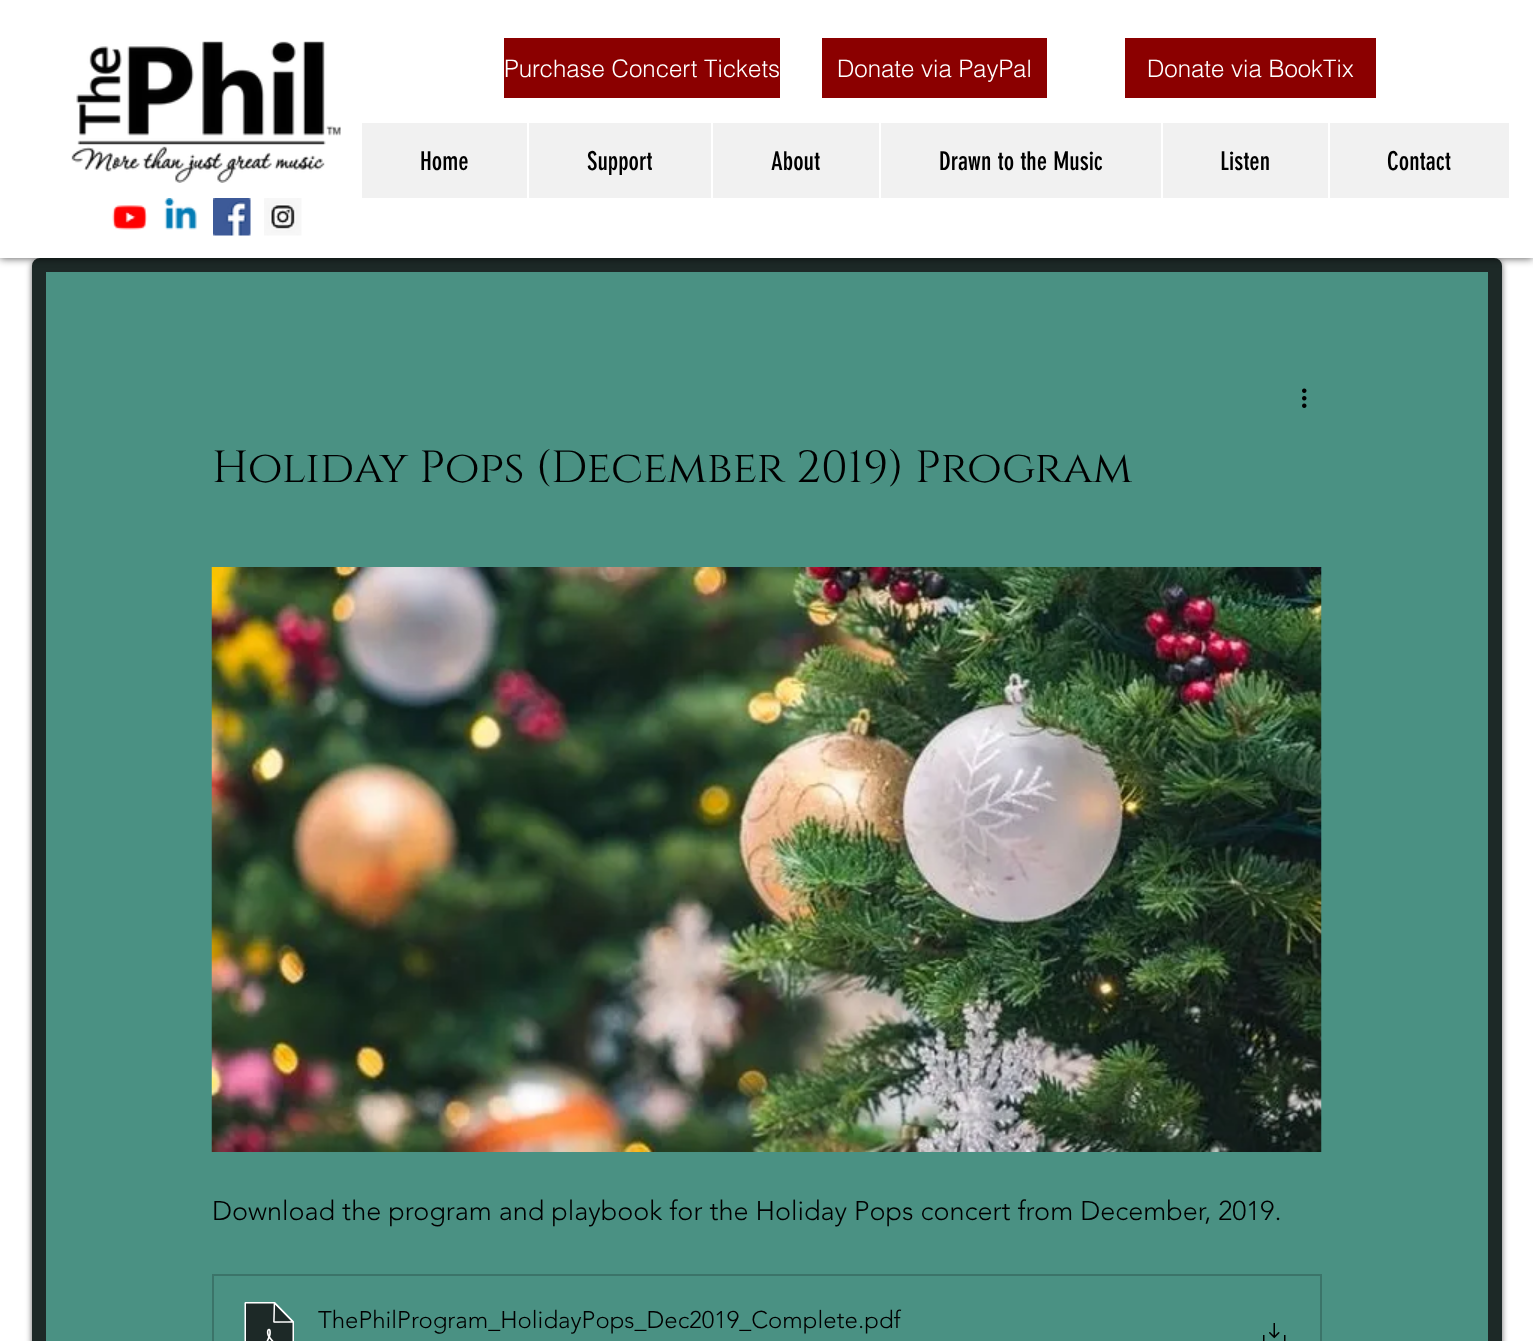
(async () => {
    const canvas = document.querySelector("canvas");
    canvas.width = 1533;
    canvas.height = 1341;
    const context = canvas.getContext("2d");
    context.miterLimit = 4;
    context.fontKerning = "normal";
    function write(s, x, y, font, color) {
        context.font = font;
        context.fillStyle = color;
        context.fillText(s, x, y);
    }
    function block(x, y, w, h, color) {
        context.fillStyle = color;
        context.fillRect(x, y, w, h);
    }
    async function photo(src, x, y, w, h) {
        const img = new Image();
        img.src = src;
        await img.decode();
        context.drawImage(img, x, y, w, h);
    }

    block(0, 0, 1533, 1341, "rgb(255, 255, 255)");
    context.fillStyle = "rgba(0, 0, 0, 0.6)";
    context.filter = "blur(3px)";
    context.beginPath();
    context.roundRect(32, 260, 1470, 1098, 8);
    context.fill();
    context.filter = "none";
    context.fillStyle = "rgb(74, 145, 131)";
    context.beginPath();
    context.roundRect(39, 265, 1456, 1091, 1);
    context.fill();
    context.strokeStyle = "rgb(29, 41, 39)";
    context.lineWidth = 14;
    context.stroke();
    context.fillStyle = "rgba(0, 0, 0, 0.7)";
    context.filter = "blur(4px)";
    context.beginPath();
    context.rect(0, 0, 1533, 258);
    context.fill();
    context.filter = "none";
    block(0, 0, 1533, 258, "rgb(255, 255, 255)");
    await photo("media/1.png", 71, 41, 270, 142);
    block(504, 38, 276, 60, "rgb(139, 0, 0)");
    write("Purchase Concert Tickets", 504, 77, "300 24px helvetica", "rgb(255, 255, 255)");
    block(822, 38, 225, 60, "rgb(139, 0, 0)");
    write("Donate via PayPal", 837, 77, "300 24px helvetica", "rgb(255, 255, 255)");
    block(1125, 38, 251, 60, "rgb(139, 0, 0)");
    write("Donate via BookTix", 1147, 77, "300 24px helvetica", "rgb(255, 255, 255)");
    block(362, 123, 1147, 75, "rgb(241, 241, 241)");
    write("Home", 420, 170, "25.5px 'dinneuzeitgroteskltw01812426'", "rgb(0, 0, 0)");
    block(527, 123, 2, 75, "rgb(255, 255, 255)");
    write("Support", 587, 170, "25.5px 'dinneuzeitgroteskltw01812426'", "rgb(0, 0, 0)");
    block(711, 123, 2, 75, "rgb(255, 255, 255)");
    write("About", 771, 170, "25.5px 'dinneuzeitgroteskltw01812426'", "rgb(0, 0, 0)");
    block(879, 123, 2, 75, "rgb(255, 255, 255)");
    write("Drawn to the Music", 939, 170, "25.5px 'dinneuzeitgroteskltw01812426'", "rgb(0, 0, 0)");
    block(1161, 123, 2, 75, "rgb(255, 255, 255)");
    write("Listen", 1220, 170, "25.5px 'dinneuzeitgroteskltw01812426'", "rgb(0, 0, 0)");
    block(1328, 123, 2, 75, "rgb(255, 255, 255)");
    write("Contact", 1387, 170, "25.5px 'dinneuzeitgroteskltw01812426'", "rgb(0, 0, 0)");
    await photo("media/2.png", 112, 205, 35, 25);
    await photo("media/3.png", 164, 198, 33, 32);
    await photo("media/4.png", 213, 198, 38, 38);
    await photo("media/5.png", 264, 198, 38, 38);
    await photo("media/6.png", 1302, 388, 5, 20);
    write("Holiday Pops (December 2019) Program", 212, 482, "45px Cinzel", "rgb(0, 0, 0)");
    await photo("media/7.png", 211, 567, 1111, 585);
    write("Download the program and playbook for the Holiday Pops concert from December, 2019.", 212, 1220, "300 27px 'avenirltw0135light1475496'", "rgb(0, 0, 0)");
    context.strokeStyle = "rgb(59, 116, 105)";
    context.lineWidth = 2;
    context.strokeRect(213, 1275, 1108, 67);
    await photo("media/8.png", 244, 1302, 50, 39);
    write("ThePhilProgram_HolidayPops_Dec2019_Complete", 318, 1328, "300 24px 'avenirltw0135light1475496'", "rgb(0, 0, 0)");
    write(".pdf", 858, 1328, "300 24px 'avenirltw0135light1475496'", "rgb(0, 0, 0)");
    await photo("media/9.png", 1263, 1323, 23, 18);
})();
